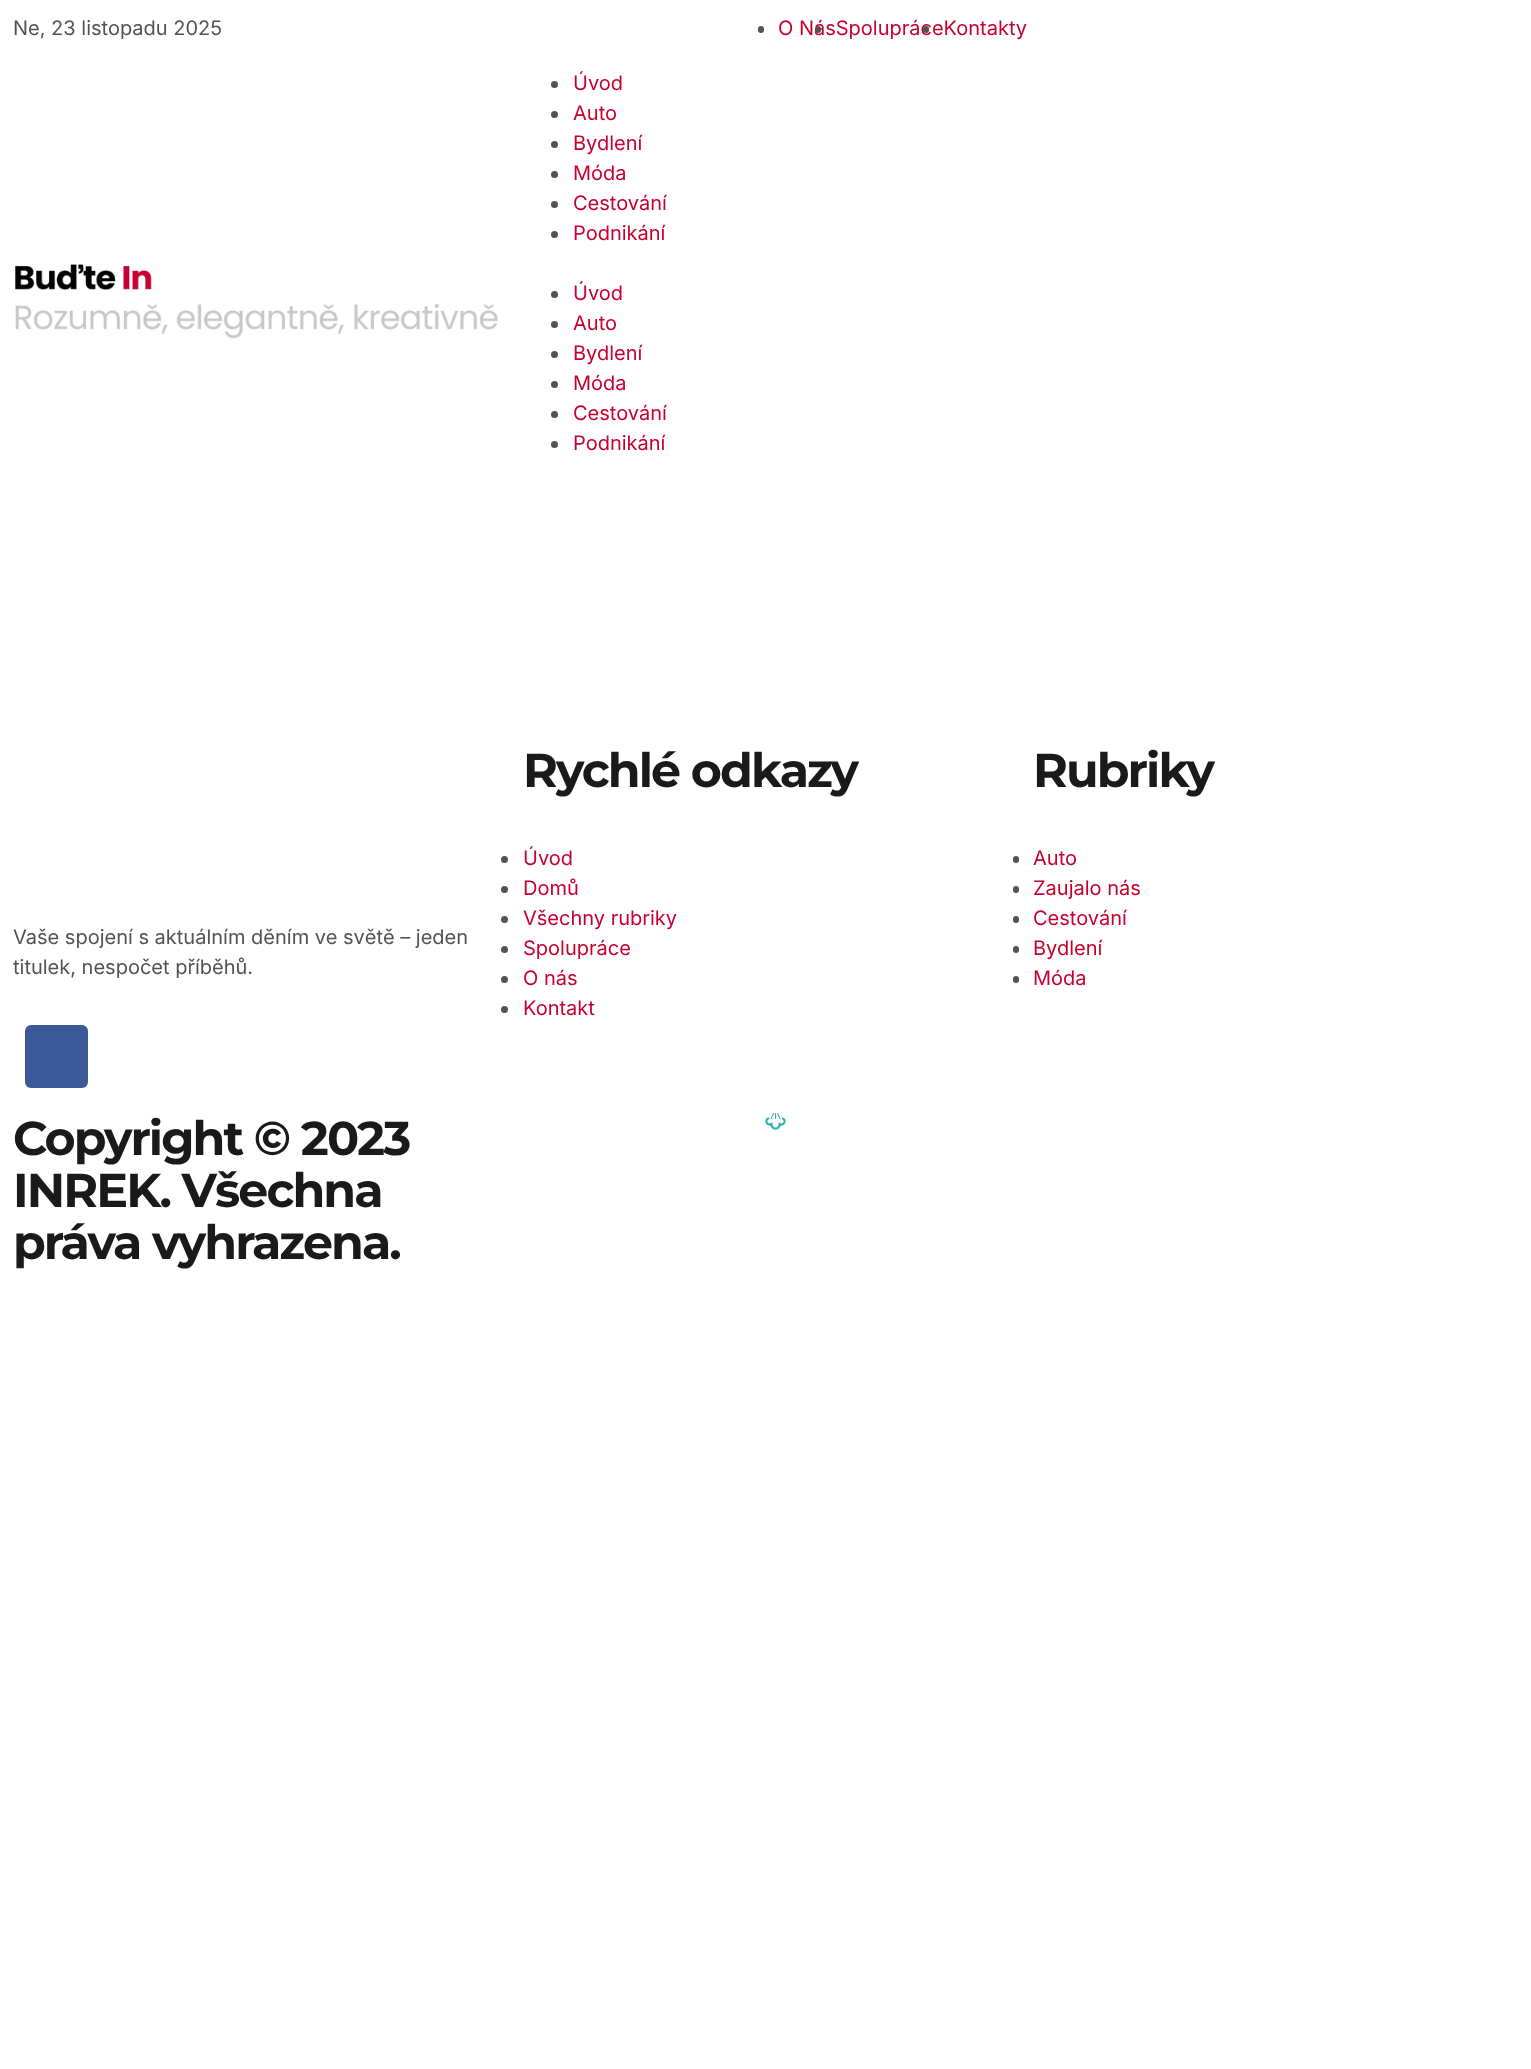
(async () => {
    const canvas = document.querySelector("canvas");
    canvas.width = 1531;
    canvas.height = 2069;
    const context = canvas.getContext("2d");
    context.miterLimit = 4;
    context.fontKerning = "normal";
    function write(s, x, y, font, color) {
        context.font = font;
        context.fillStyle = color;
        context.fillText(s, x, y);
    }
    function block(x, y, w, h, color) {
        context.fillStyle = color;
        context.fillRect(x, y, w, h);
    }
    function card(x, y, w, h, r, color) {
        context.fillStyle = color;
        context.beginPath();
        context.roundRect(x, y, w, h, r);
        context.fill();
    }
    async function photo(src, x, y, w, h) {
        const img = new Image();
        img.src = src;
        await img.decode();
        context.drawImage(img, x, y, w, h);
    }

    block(0, 0, 1531, 2069, "rgb(255, 255, 255)");
    write("Ne, 23 listopadu 2025", 13, 35, "20px Inter", "rgb(83, 83, 83)");
    card(758, 26, 6, 7, 3, "rgb(83, 83, 83)");
    write("O NásSpolupráceKontakty", 778, 35, "20px Inter", "rgb(200, 0, 50)");
    card(815, 26, 6, 7, 3, "rgb(83, 83, 83)");
    card(923, 26, 6, 7, 3, "rgb(83, 83, 83)");
    await photo("media/1.png", 15, 264, 483, 75);
    context.beginPath();
    context.arc(554.5, 84.5, 3.5, 0, Math.PI * 2);
    context.fill();
    write("Úvod", 573, 90, "20px Inter", "rgb(200, 0, 50)");
    context.fillStyle = "rgb(83, 83, 83)";
    context.beginPath();
    context.arc(554.5, 114.5, 3.5, 0, Math.PI * 2);
    context.fill();
    write("Auto", 573, 120, "20px Inter", "rgb(200, 0, 50)");
    context.fillStyle = "rgb(83, 83, 83)";
    context.beginPath();
    context.arc(554.5, 144.5, 3.5, 0, Math.PI * 2);
    context.fill();
    write("Bydlení", 573, 150, "20px Inter", "rgb(200, 0, 50)");
    context.fillStyle = "rgb(83, 83, 83)";
    context.beginPath();
    context.arc(554.5, 174.5, 3.5, 0, Math.PI * 2);
    context.fill();
    write("Móda", 573, 180, "20px Inter", "rgb(200, 0, 50)");
    context.fillStyle = "rgb(83, 83, 83)";
    context.beginPath();
    context.arc(554.5, 204.5, 3.5, 0, Math.PI * 2);
    context.fill();
    write("Cestování", 573, 210, "20px Inter", "rgb(200, 0, 50)");
    context.fillStyle = "rgb(83, 83, 83)";
    context.beginPath();
    context.arc(554.5, 234.5, 3.5, 0, Math.PI * 2);
    context.fill();
    write("Podnikání", 573, 240, "20px Inter", "rgb(200, 0, 50)");
    context.fillStyle = "rgb(83, 83, 83)";
    context.beginPath();
    context.arc(554.5, 294.5, 3.5, 0, Math.PI * 2);
    context.fill();
    write("Úvod", 573, 300, "20px Inter", "rgb(200, 0, 50)");
    context.fillStyle = "rgb(83, 83, 83)";
    context.beginPath();
    context.arc(554.5, 324.5, 3.5, 0, Math.PI * 2);
    context.fill();
    write("Auto", 573, 330, "20px Inter", "rgb(200, 0, 50)");
    context.fillStyle = "rgb(83, 83, 83)";
    context.beginPath();
    context.arc(554.5, 354.5, 3.5, 0, Math.PI * 2);
    context.fill();
    write("Bydlení", 573, 360, "20px Inter", "rgb(200, 0, 50)");
    context.fillStyle = "rgb(83, 83, 83)";
    context.beginPath();
    context.arc(554.5, 384.5, 3.5, 0, Math.PI * 2);
    context.fill();
    write("Móda", 573, 390, "20px Inter", "rgb(200, 0, 50)");
    context.fillStyle = "rgb(83, 83, 83)";
    context.beginPath();
    context.arc(554.5, 414.5, 3.5, 0, Math.PI * 2);
    context.fill();
    write("Cestování", 573, 420, "20px Inter", "rgb(200, 0, 50)");
    context.fillStyle = "rgb(83, 83, 83)";
    context.beginPath();
    context.arc(554.5, 444.5, 3.5, 0, Math.PI * 2);
    context.fill();
    write("Podnikání", 573, 450, "20px Inter", "rgb(200, 0, 50)");
    write("Vaše spojení s aktuálním děním ve světě – jeden", 13, 944, "20px Inter", "rgb(83, 83, 83)");
    write("titulek, nespočet příběhů.", 13, 974, "20px Inter", "rgb(83, 83, 83)");
    card(25, 1025, 63, 63, 6, "rgb(59, 89, 152)");
    context.letterSpacing = "-1.9px";
    write("Rychlé odkazy", 523, 787, "bold 47.5px Montserrat", "rgb(26, 26, 26)");
    context.fillStyle = "rgb(83, 83, 83)";
    context.beginPath();
    context.arc(504.5, 859.5, 3.5, 0, Math.PI * 2);
    context.fill();
    context.letterSpacing = "0px";
    write("Úvod", 523, 865, "20px Inter", "rgb(200, 0, 50)");
    context.fillStyle = "rgb(83, 83, 83)";
    context.beginPath();
    context.arc(504.5, 889.5, 3.5, 0, Math.PI * 2);
    context.fill();
    write("Domů", 523, 895, "20px Inter", "rgb(200, 0, 50)");
    context.fillStyle = "rgb(83, 83, 83)";
    context.beginPath();
    context.arc(504.5, 919.5, 3.5, 0, Math.PI * 2);
    context.fill();
    write("Všechny rubriky", 523, 925, "20px Inter", "rgb(200, 0, 50)");
    context.fillStyle = "rgb(83, 83, 83)";
    context.beginPath();
    context.arc(504.5, 949.5, 3.5, 0, Math.PI * 2);
    context.fill();
    write("Spolupráce", 523, 955, "20px Inter", "rgb(200, 0, 50)");
    context.fillStyle = "rgb(83, 83, 83)";
    context.beginPath();
    context.arc(504.5, 979.5, 3.5, 0, Math.PI * 2);
    context.fill();
    write("O nás", 523, 985, "20px Inter", "rgb(200, 0, 50)");
    context.fillStyle = "rgb(83, 83, 83)";
    context.beginPath();
    context.arc(504.5, 1009.5, 3.5, 0, Math.PI * 2);
    context.fill();
    write("Kontakt", 523, 1015, "20px Inter", "rgb(200, 0, 50)");
    context.letterSpacing = "-1.9px";
    write("Rubriky", 1033, 787, "bold 47.5px Montserrat", "rgb(26, 26, 26)");
    card(1013, 856, 6, 7, 3, "rgb(83, 83, 83)");
    context.letterSpacing = "0px";
    write("Auto", 1033, 865, "20px Inter", "rgb(200, 0, 50)");
    card(1013, 886, 6, 7, 3, "rgb(83, 83, 83)");
    write("Zaujalo nás", 1033, 895, "20px Inter", "rgb(200, 0, 50)");
    card(1013, 916, 6, 7, 3, "rgb(83, 83, 83)");
    write("Cestování", 1033, 925, "20px Inter", "rgb(200, 0, 50)");
    card(1013, 946, 6, 7, 3, "rgb(83, 83, 83)");
    write("Bydlení", 1033, 955, "20px Inter", "rgb(200, 0, 50)");
    card(1013, 976, 6, 7, 3, "rgb(83, 83, 83)");
    write("Móda", 1033, 985, "20px Inter", "rgb(200, 0, 50)");
    context.letterSpacing = "-1.9px";
    write("Copyright © 2023", 13, 1155, "bold 47.5px Montserrat", "rgb(26, 26, 26)");
    write("INREK. Všechna", 13, 1207, "bold 47.5px Montserrat", "rgb(26, 26, 26)");
    write("práva vyhrazena.", 13, 1259, "bold 47.5px Montserrat", "rgb(26, 26, 26)");
    await photo("media/2.png", 765, 1113, 21, 17);
})();
